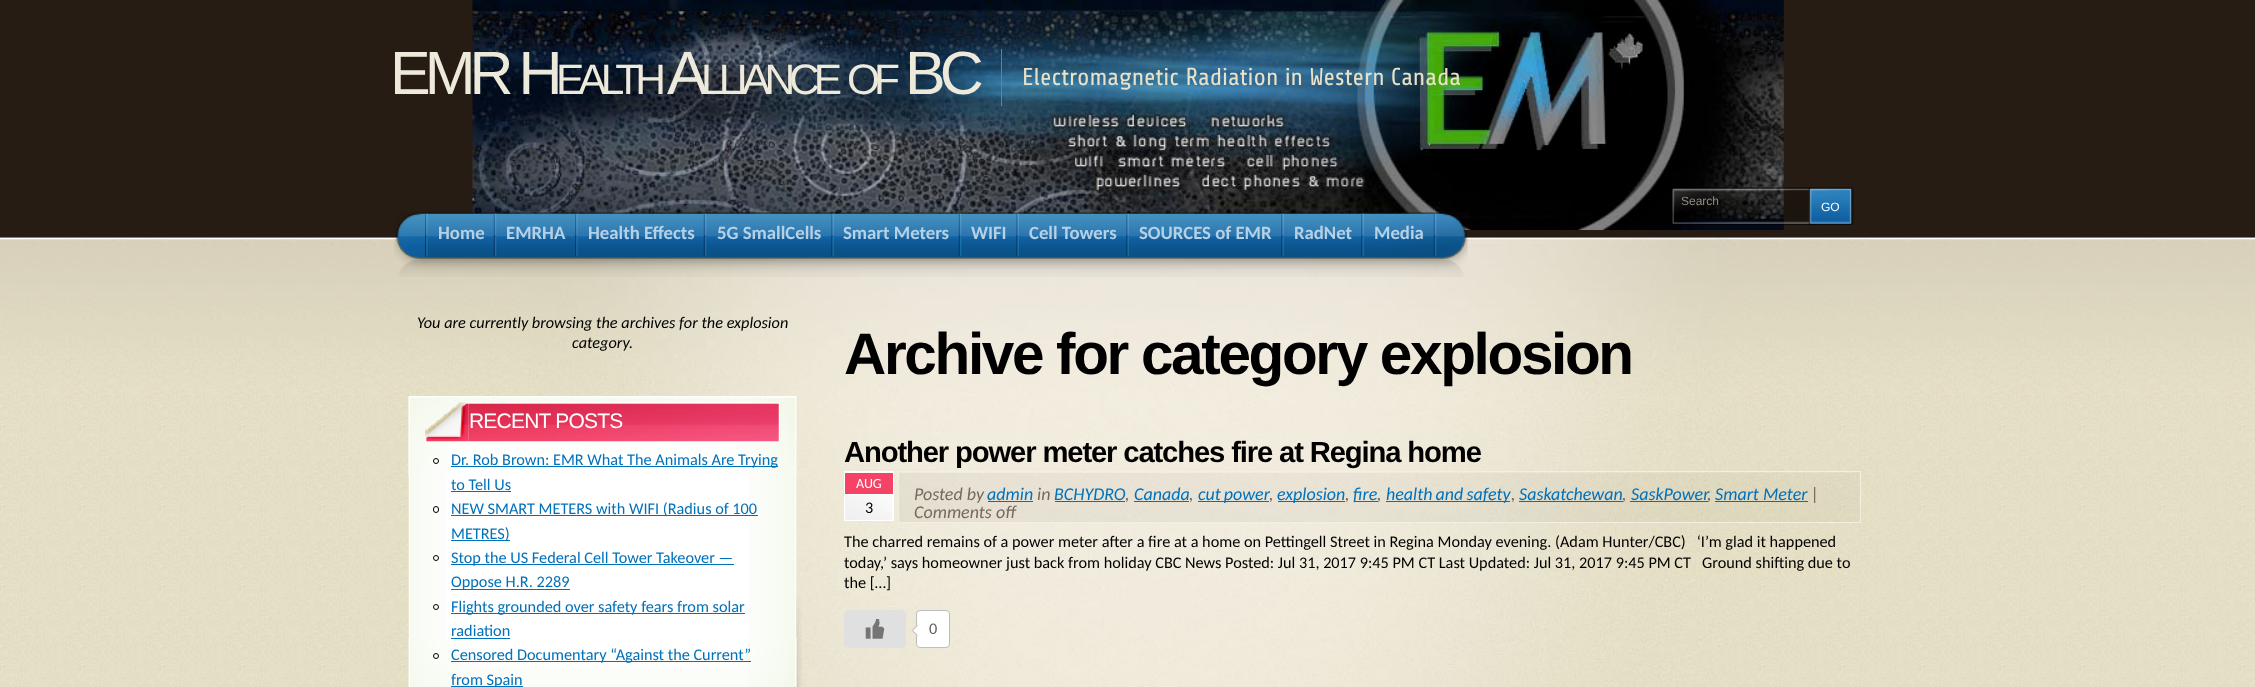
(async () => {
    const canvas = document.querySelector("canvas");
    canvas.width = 2255;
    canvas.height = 687;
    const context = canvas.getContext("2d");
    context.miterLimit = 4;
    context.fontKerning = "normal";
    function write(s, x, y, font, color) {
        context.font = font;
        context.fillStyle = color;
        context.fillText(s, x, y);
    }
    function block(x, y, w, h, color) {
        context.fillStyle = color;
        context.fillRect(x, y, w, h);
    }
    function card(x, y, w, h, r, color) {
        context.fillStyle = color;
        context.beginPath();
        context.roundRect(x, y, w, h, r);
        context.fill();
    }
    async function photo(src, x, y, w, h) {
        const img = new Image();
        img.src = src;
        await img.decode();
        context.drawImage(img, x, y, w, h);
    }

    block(0, 0, 2255, 687, "rgb(38, 28, 19)");
    await photo("media/1.png", 472, 0, 1312, 230);
    context.letterSpacing = "-6px";
    write("EMR H", 390, 94, "61px Liberation Sans", "rgb(238, 234, 219)");
    write("EALTH", 556, 94, "42.5px Liberation Sans", "rgb(238, 234, 219)");
    write("A", 667, 94, "61px Liberation Sans", "rgb(238, 234, 219)");
    write("LLIANCE", 701, 94, "42.5px Liberation Sans", "rgb(238, 234, 219)");
    write("OF", 847, 94, "42.5px Liberation Sans", "rgb(238, 234, 219)");
    write("BC", 905, 94, "61px Liberation Sans", "rgb(238, 234, 219)");
    block(1001, 49, 1, 57, "rgb(142, 119, 98)");
    context.letterSpacing = "0px";
    write("Electromagnetic Radiation in Western Canada", 1022, 85, "24.4px Share", "rgb(233, 226, 201)");
    await photo("media/2.png", 1672, 187, 138, 38);
    await photo("media/3.png", 1808, 187, 46, 38);
    write("Search", 1681, 205, "12px Liberation Sans", "rgb(146, 138, 133)");
    write("GO", 1821, 211, "12px Liberation Sans", "rgb(255, 255, 255)");
    await photo("media/17.png", 0, 237, 2255, 450);
    await photo("media/18.png", 0, 239, 2255, 150);
    block(0, 238, 2255, 1, "rgb(255, 255, 255)");
    await photo("media/4.png", 394, 212, 31, 65);
    await photo("media/19.png", 527, 238, 1201, 449);
    await photo("media/5.png", 425, 212, 1043, 65);
    await photo("media/6.png", 1433, 213, 4, 44);
    await photo("media/7.png", 425, 213, 3, 44);
    write("Home", 438, 239, "bold 18.75px Carlito", "rgb(181, 209, 230)");
    await photo("media/8.png", 493, 213, 4, 44);
    write("EMRHA", 506, 239, "bold 18.75px Carlito", "rgb(181, 209, 230)");
    await photo("media/9.png", 575, 213, 3, 44);
    write("Health Effects", 588, 239, "bold 18.75px Carlito", "rgb(181, 209, 230)");
    await photo("media/10.png", 703, 213, 4, 44);
    write("5G SmallCells", 717, 239, "bold 18.75px Carlito", "rgb(181, 209, 230)");
    await photo("media/11.png", 831, 213, 3, 44);
    write("Smart Meters", 843, 239, "bold 18.75px Carlito", "rgb(181, 209, 230)");
    await photo("media/12.png", 958, 213, 4, 44);
    write("WIFI", 971, 239, "bold 18.75px Carlito", "rgb(181, 209, 230)");
    await photo("media/13.png", 1016, 213, 3, 44);
    write("Cell Towers", 1029, 239, "bold 18.75px Carlito", "rgb(181, 209, 230)");
    await photo("media/14.png", 1126, 213, 3, 44);
    write("SOURCES of EMR", 1139, 239, "bold 18.75px Carlito", "rgb(181, 209, 230)");
    await photo("media/15.png", 1281, 213, 3, 44);
    write("RadNet", 1294, 239, "bold 18.75px Carlito", "rgb(181, 209, 230)");
    await photo("media/16.png", 1361, 213, 3, 44);
    write("Media", 1374, 239, "bold 18.75px Carlito", "rgb(181, 209, 230)");
    write("You are currently browsing the archives for the explosion", 417, 328, "italic 16.25px Carlito", "rgb(0, 0, 0)");
    write("category.", 572, 348, "italic 16.25px Carlito", "rgb(0, 0, 0)");
    await photo("media/20.png", 796, 596, 6, 91);
    block(409, 396, 387, 242, "rgb(255, 255, 255)");
    await photo("media/21.png", 408, 396, 38, 291);
    await photo("media/22.png", 749, 396, 48, 291);
    await photo("media/23.png", 408, 396, 389, 82);
    await photo("media/24.png", 408, 637, 389, 50);
    await photo("media/25.png", 408, 396, 40, 82);
    await photo("media/26.png", 747, 637, 50, 50);
    await photo("media/27.png", 425, 402, 44, 40);
    await photo("media/28.png", 468, 402, 312, 40);
    context.letterSpacing = "-0.8px";
    write("RECENT POSTS", 469, 428, "21px Liberation Sans", "rgb(255, 255, 255)");
    context.beginPath();
    context.arc(436, 461, 2.5, 0, Math.PI * 2);
    context.strokeStyle = "rgb(0, 0, 0)";
    context.stroke();
    block(451, 466, 327, 1, "rgb(0, 113, 187)");
    context.letterSpacing = "0px";
    write("Dr. Rob Brown: EMR What The Animals Are Trying", 451, 465, "16.25px Carlito", "rgb(0, 113, 187)");
    write("to Tell Us", 451, 490, "16.25px Carlito", "rgb(0, 113, 187)");
    block(451, 491, 60, 1, "rgb(0, 113, 187)");
    context.beginPath();
    context.roundRect(433.5, 506.5, 5, 6, 2.5);
    context.stroke();
    block(451, 515, 307, 1, "rgb(0, 113, 187)");
    write("NEW SMART METERS with WIFI (Radius of 100", 451, 514, "16.25px Carlito", "rgb(0, 113, 187)");
    block(451, 540, 59, 1, "rgb(0, 113, 187)");
    write("METRES)", 451, 539, "16.25px Carlito", "rgb(0, 113, 187)");
    context.beginPath();
    context.arc(436, 558, 2.5, 0, Math.PI * 2);
    context.stroke();
    block(451, 564, 283, 1, "rgb(0, 113, 187)");
    write("Stop the US Federal Cell Tower Takeover —", 451, 563, "16.25px Carlito", "rgb(0, 113, 187)");
    block(451, 589, 119, 1, "rgb(0, 113, 187)");
    write("Oppose H.R. 2289", 451, 587, "16.25px Carlito", "rgb(0, 113, 187)");
    context.beginPath();
    context.arc(436, 607, 2.5, 0, Math.PI * 2);
    context.stroke();
    block(451, 613, 294, 1, "rgb(0, 113, 187)");
    write("Flights grounded over safety fears from solar", 451, 612, "16.25px Carlito", "rgb(0, 113, 187)");
    write("radiation", 451, 636, "16.25px Carlito", "rgb(0, 113, 187)");
    block(451, 638, 59, 1, "rgb(0, 113, 187)");
    context.beginPath();
    context.arc(436, 656, 2.5, 0, Math.PI * 2);
    context.stroke();
    block(451, 661, 300, 1, "rgb(0, 113, 187)");
    write("Censored Documentary “Against the Current”", 451, 660, "16.25px Carlito", "rgb(0, 113, 187)");
    block(451, 686, 72, 1, "rgb(0, 113, 187)");
    write("from Spain", 451, 685, "16.25px Carlito", "rgb(0, 113, 187)");
    context.letterSpacing = "-2.35px";
    write("Archive for category explosion", 844, 374, "bold 58.5px Liberation Sans", "rgb(0, 0, 0)");
    context.letterSpacing = "-1.15px";
    write("Another power meter catches fire at Regina home", 844, 462, "bold 29.25px Liberation Sans", "rgb(0, 0, 0)");
    block(844, 471, 50, 50, "rgb(255, 255, 255)");
    await photo("media/29.png", 845, 495, 48, 25);
    block(845, 473, 48, 21, "rgb(244, 67, 101)");
    context.letterSpacing = "0px";
    write("AUG", 856, 488, "14px Carlito", "rgb(255, 255, 255)");
    write("3", 865, 513, "16.25px Carlito", "rgb(0, 0, 0)");
    await photo("media/30.png", 899, 473, 961, 49);
    context.strokeStyle = "rgb(242, 239, 229)";
    context.strokeRect(898.5, 471.5, 962, 51);
    write("Posted by", 914, 500, "italic 18px Carlito", "rgb(117, 105, 94)");
    write("admin", 987, 500, "italic 18px Carlito", "rgb(0, 113, 187)");
    block(988, 501, 45, 1, "rgb(0, 113, 187)");
    write("in", 1037, 500, "italic 18px Carlito", "rgb(117, 105, 94)");
    write("BCHYDRO", 1054, 500, "italic 18px Carlito", "rgb(0, 113, 187)");
    block(1055, 501, 70, 1, "rgb(0, 113, 187)");
    write(",", 1125, 500, "italic 18px Carlito", "rgb(117, 105, 94)");
    write("Canada", 1134, 500, "italic 18px Carlito", "rgb(0, 113, 187)");
    block(1134, 501, 55, 1, "rgb(0, 113, 187)");
    write(",", 1189, 500, "italic 18px Carlito", "rgb(117, 105, 94)");
    block(1198, 501, 71, 1, "rgb(0, 113, 187)");
    context.wordSpacing = "-1px";
    write("cut power", 1198, 500, "italic 18px Carlito", "rgb(0, 113, 187)");
    context.wordSpacing = "0px";
    write(",", 1269, 500, "italic 18px Carlito", "rgb(117, 105, 94)");
    block(1278, 501, 67, 1, "rgb(0, 113, 187)");
    write("explosion", 1277, 500, "italic 18px Carlito", "rgb(0, 113, 187)");
    write(",", 1345, 500, "italic 18px Carlito", "rgb(117, 105, 94)");
    block(1354, 501, 24, 1, "rgb(0, 113, 187)");
    write("fire", 1353, 500, "italic 18px Carlito", "rgb(0, 113, 187)");
    write(",", 1377, 500, "italic 18px Carlito", "rgb(117, 105, 94)");
    block(1386, 501, 124, 1, "rgb(0, 113, 187)");
    context.wordSpacing = "-1px";
    write("health and safety", 1386, 500, "italic 18px Carlito", "rgb(0, 113, 187)");
    context.wordSpacing = "0px";
    write(",", 1511, 500, "italic 18px Carlito", "rgb(117, 105, 94)");
    write("Saskatchewan", 1519, 500, "italic 18px Carlito", "rgb(0, 113, 187)");
    block(1519, 501, 104, 1, "rgb(0, 113, 187)");
    write(",", 1622, 500, "italic 18px Carlito", "rgb(117, 105, 94)");
    write("SaskPower", 1631, 500, "italic 18px Carlito", "rgb(0, 113, 187)");
    block(1630, 501, 78, 1, "rgb(0, 113, 187)");
    write("Smart Meter", 1715, 500, "italic 18px Carlito", "rgb(0, 113, 187)");
    block(1715, 501, 93, 1, "rgb(0, 113, 187)");
    write("|", 1811, 500, "italic 18px Carlito", "rgb(117, 105, 94)");
    write(",", 1707, 500, "italic 18px Carlito", "rgb(117, 105, 94)");
    write("Comments off", 914, 518, "italic 18px Carlito", "rgb(117, 105, 94)");
    write("The charred remains of a power meter after a fire at a home on Pettingell Street in Regina Monday evening. (Adam Hunter/CBC)   ‘I’m glad it happened", 844, 547, "16.25px Carlito", "rgb(0, 0, 0)");
    write("today,’ says homeowner just back from holiday CBC News Posted: Jul 31, 2017 9:45 PM CT Last Updated: Jul 31, 2017 9:45 PM CT   Ground shifting due to", 844, 568, "16.25px Carlito", "rgb(0, 0, 0)");
    write("the […]", 844, 588, "16.25px Carlito", "rgb(0, 0, 0)");
    card(844, 610, 62, 38, 5, "rgb(224, 224, 224)");
    await photo("media/31.png", 865, 619, 20, 20);
    context.fillStyle = "rgb(255, 255, 255)";
    context.beginPath();
    context.roundRect(916.5, 610.5, 33, 37, 3.5);
    context.fill();
    context.strokeStyle = "rgb(189, 189, 189)";
    context.stroke();
    context.beginPath();
    context.moveTo(917.5, 624.5);
    context.lineTo(923.5, 630.5);
    context.lineTo(917.5, 636.5);
    context.lineTo(911.5, 630.5);
    context.closePath();
    context.fill();
    context.fillStyle = "rgb(189, 189, 189)";
    context.beginPath();
    context.moveTo(917.5, 636.5);
    context.lineTo(911.5, 630.5);
    context.lineTo(913, 630.5);
    context.lineTo(917.5, 635);
    context.closePath();
    context.fill();
    context.beginPath();
    context.moveTo(911.5, 630.5);
    context.lineTo(917.5, 624.5);
    context.lineTo(917.5, 626);
    context.lineTo(913, 630.5);
    context.closePath();
    context.fill();
    write("0", 929, 634, "16.25px Carlito", "rgb(97, 97, 97)");
})();
